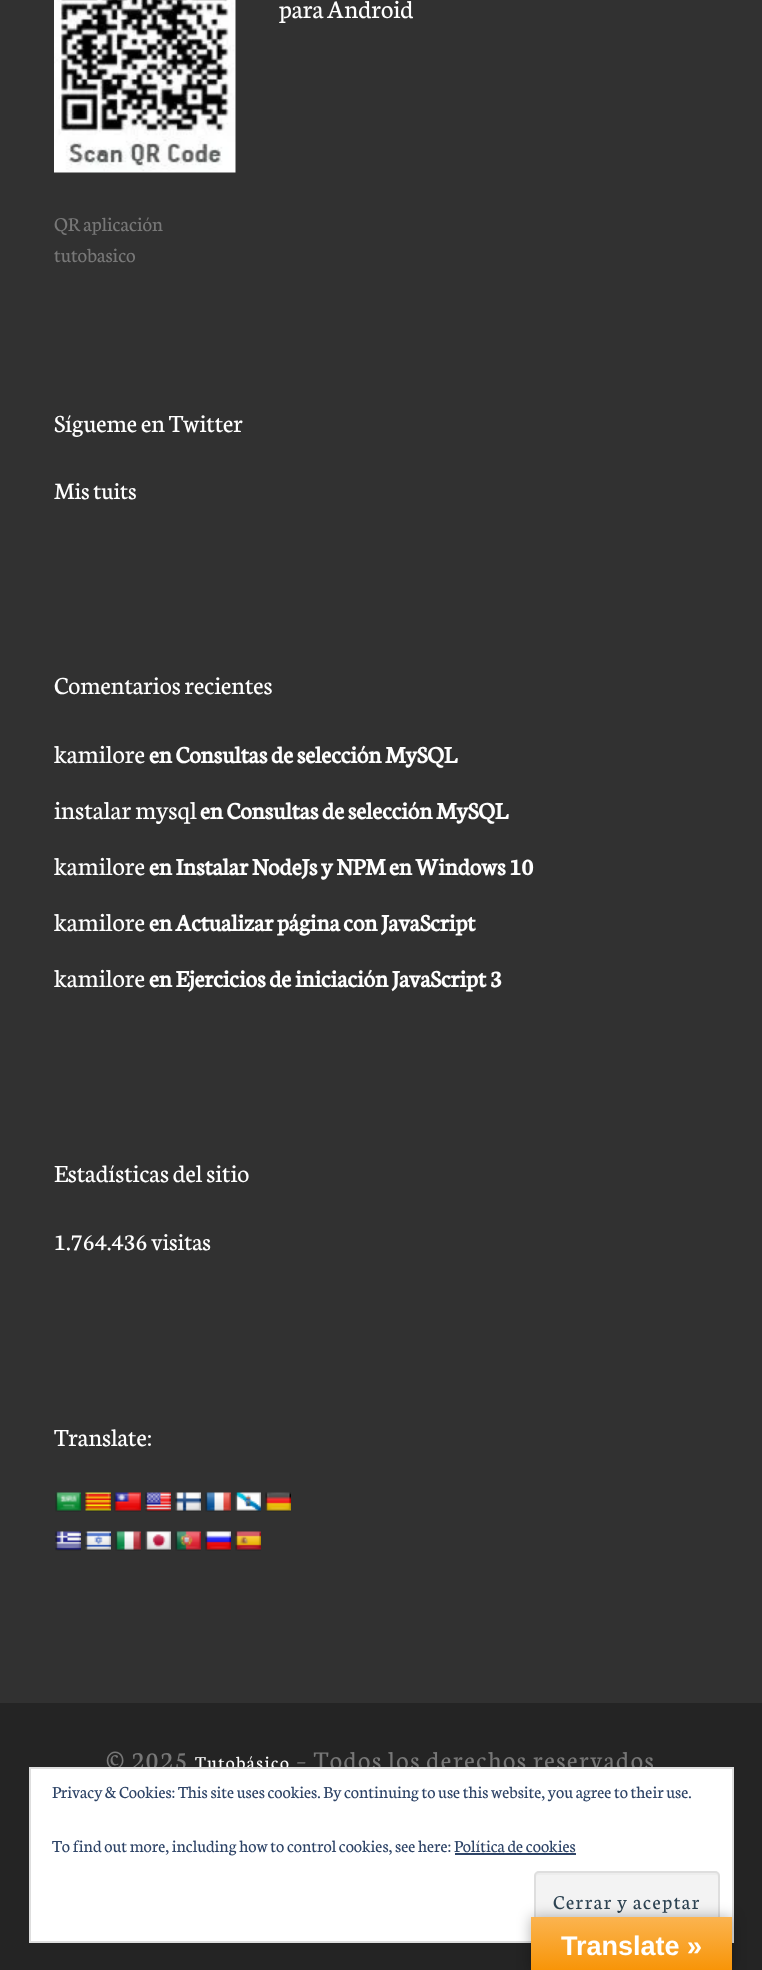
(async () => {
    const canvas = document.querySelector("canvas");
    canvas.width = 762;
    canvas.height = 1970;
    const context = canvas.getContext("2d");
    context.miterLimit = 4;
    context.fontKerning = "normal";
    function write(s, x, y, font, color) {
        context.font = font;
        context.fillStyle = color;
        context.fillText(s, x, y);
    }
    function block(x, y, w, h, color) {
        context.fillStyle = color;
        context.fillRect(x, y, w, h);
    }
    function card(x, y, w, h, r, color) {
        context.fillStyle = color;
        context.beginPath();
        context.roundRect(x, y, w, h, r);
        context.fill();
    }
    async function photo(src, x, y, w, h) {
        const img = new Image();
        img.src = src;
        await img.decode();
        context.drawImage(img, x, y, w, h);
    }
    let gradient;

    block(0, 0, 762, 1970, "rgb(49, 49, 49)");
    write("para Android", 279, 18, "27px Neuton", "rgb(255, 255, 255)");
    await photo("media/1.png", 54, 0, 182, 173);
    write("QR aplicación", 54, 231, "21px Neuton", "rgb(119, 119, 119)");
    write("tutobasico", 54, 262, "21px Neuton", "rgb(119, 119, 119)");
    write("Sígueme en Twitter", 54, 432, "26.25px Neuton", "rgb(255, 255, 255)");
    write("Mis tuits", 54, 499, "25.1px Neuton", "rgb(255, 255, 255)");
    write("Comentarios recientes", 54, 694, "26.25px Neuton", "rgb(255, 255, 255)");
    write("kamilore", 54, 763, "27px Neuton", "rgb(255, 255, 255)");
    write("en Consultas de selección MySQL", 149, 763, "bold 25.1px Neuton", "rgb(255, 255, 255)");
    write("instalar mysql", 54, 819, "27px Neuton", "rgb(255, 255, 255)");
    write("en Consultas de selección MySQL", 200, 819, "bold 25.1px Neuton", "rgb(255, 255, 255)");
    write("kamilore", 54, 875, "27px Neuton", "rgb(255, 255, 255)");
    write("en Instalar NodeJs y NPM en Windows 10", 149, 875, "bold 25.1px Neuton", "rgb(255, 255, 255)");
    write("kamilore", 54, 931, "27px Neuton", "rgb(255, 255, 255)");
    write("en Actualizar página con JavaScript", 149, 931, "bold 25.1px Neuton", "rgb(255, 255, 255)");
    write("kamilore", 54, 987, "27px Neuton", "rgb(255, 255, 255)");
    write("en Ejercicios de iniciación JavaScript 3", 149, 987, "bold 25.1px Neuton", "rgb(255, 255, 255)");
    write("Estadísticas del sitio", 54, 1182, "26.25px Neuton", "rgb(255, 255, 255)");
    write("1.764.436 visitas", 54, 1250, "25.1px Neuton", "rgb(255, 255, 255)");
    write("Translate:", 54, 1446, "26.25px Neuton", "rgb(255, 255, 255)");
    await photo("media/2.png", 55, 1492, 26, 20);
    await photo("media/3.png", 85, 1492, 26, 20);
    await photo("media/4.png", 114, 1492, 27, 20);
    await photo("media/5.png", 145, 1492, 26, 20);
    await photo("media/6.png", 175, 1492, 26, 20);
    await photo("media/7.png", 205, 1492, 26, 20);
    await photo("media/8.png", 235, 1492, 26, 20);
    await photo("media/9.png", 265, 1492, 26, 20);
    await photo("media/10.png", 55, 1531, 26, 20);
    await photo("media/11.png", 85, 1531, 26, 20);
    await photo("media/12.png", 115, 1531, 26, 20);
    await photo("media/13.png", 145, 1531, 26, 20);
    await photo("media/14.png", 175, 1531, 26, 20);
    await photo("media/15.png", 205, 1531, 26, 20);
    await photo("media/16.png", 235, 1531, 26, 20);
    block(0, 1703, 762, 267, "rgb(36, 36, 36)");
    context.letterSpacing = "1.5px";
    write("© 2025", 106, 1769, "27px Neuton", "rgb(119, 119, 119)");
    write("Tutobásico", 195, 1769, "19.5px Neuton", "rgb(255, 255, 255)");
    write("– Todos los derechos reservados", 296, 1769, "27px Neuton", "rgb(119, 119, 119)");
    context.fillStyle = "rgb(255, 255, 255)";
    context.beginPath();
    context.rect(30, 1768, 703, 174);
    context.fill();
    context.strokeStyle = "rgb(222, 222, 222)";
    context.lineWidth = 2;
    context.stroke();
    context.letterSpacing = "0px";
    write("Privacy & Cookies: This site uses cookies. By continuing to use this website, you agree to their use.", 52, 1798, "18px Neuton", "rgb(46, 68, 103)");
    write("To find out more, including how to control cookies, see here: Política de cookies", 52, 1852, "18px Neuton", "rgb(46, 68, 103)");
    block(455, 1853, 121, 2, "rgb(46, 68, 103)");
    card(534, 1871, 186, 58, 5, "rgb(243, 243, 243)");
    context.fillStyle = "rgb(237, 237, 237)";
    context.beginPath();
    context.moveTo(538, 1875);
    context.lineTo(716, 1875);
    context.bezierCurveTo(717, 1875, 718, 1876, 718, 1878);
    context.lineTo(718, 1927);
    context.bezierCurveTo(719, 1927, 719, 1926, 719, 1925);
    context.lineTo(719, 1875);
    context.bezierCurveTo(719, 1873, 718, 1872, 716, 1872);
    context.lineTo(539, 1872);
    context.bezierCurveTo(537, 1872, 536, 1873, 536, 1875);
    context.lineTo(536, 1878);
    context.bezierCurveTo(536, 1876, 537, 1875, 538, 1875);
    context.closePath();
    context.fill();
    context.beginPath();
    context.roundRect(535, 1872, 184, 56, 4);
    context.stroke();
    context.letterSpacing = "1.5px";
    write("Cerrar y aceptar", 553, 1909, "21px Neuton", "rgb(46, 68, 83)");
    context.fillStyle = "rgba(0, 0, 0, 0.3)";
    context.filter = "blur(7px)";
    context.beginPath();
    context.rect(531, 1917, 201, 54);
    context.fill();
    context.filter = "none";
    gradient = context.createLinearGradient(632, 1917, 632, 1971);
    gradient.addColorStop(0, "rgb(251, 180, 80)");
    gradient.addColorStop(1, "rgb(248, 148, 6)");
    context.fillStyle = gradient;
    context.fillRect(531, 1917, 201, 53);
    context.letterSpacing = "0px";
    write("Translate »", 561, 1955, "bold 27px Liberation Sans", "rgb(255, 255, 255)");
})();
